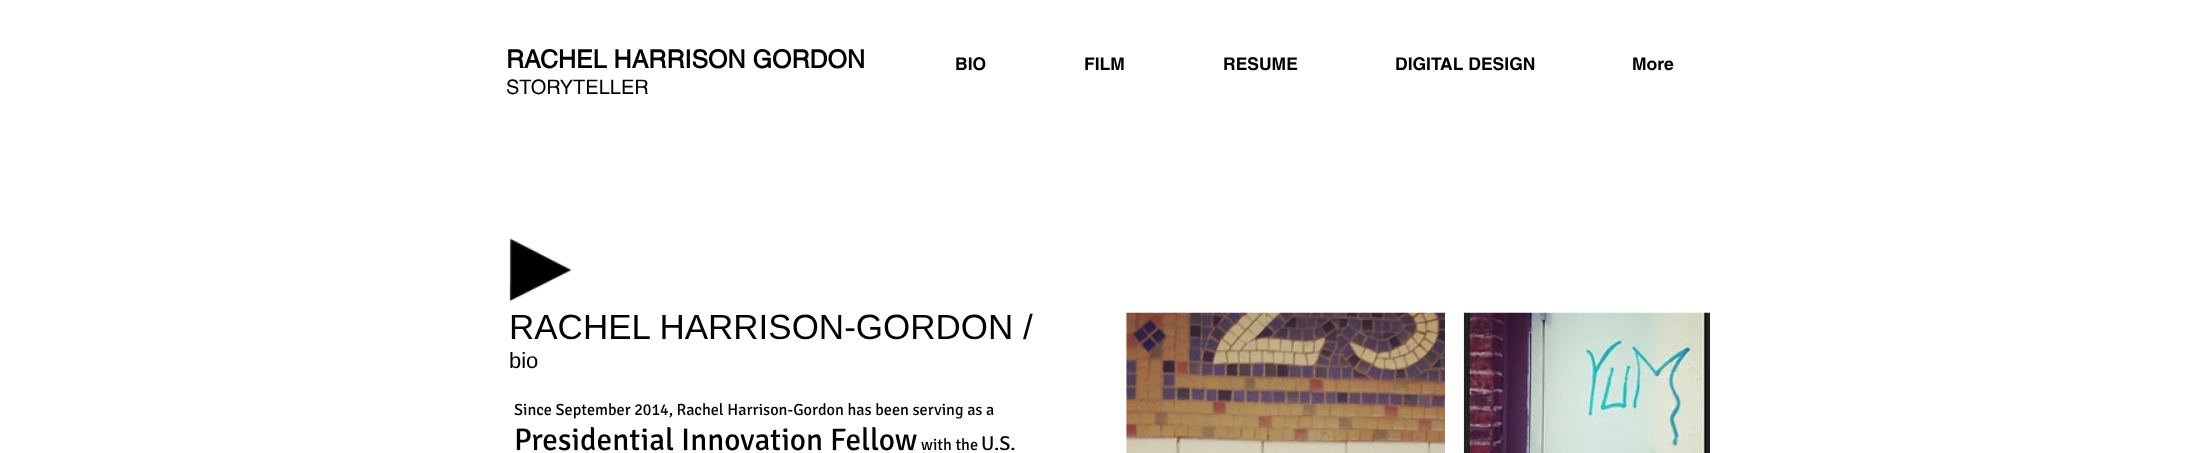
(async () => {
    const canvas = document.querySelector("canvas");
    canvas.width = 2202;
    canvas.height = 453;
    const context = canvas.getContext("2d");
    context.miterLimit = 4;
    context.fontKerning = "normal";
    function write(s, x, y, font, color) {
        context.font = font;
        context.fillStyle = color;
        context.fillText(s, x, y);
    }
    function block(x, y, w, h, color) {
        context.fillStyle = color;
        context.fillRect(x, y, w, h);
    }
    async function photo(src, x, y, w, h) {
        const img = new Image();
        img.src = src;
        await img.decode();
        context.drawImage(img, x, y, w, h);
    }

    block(0, 0, 2202, 453, "rgb(255, 255, 255)");
    write("RACHEL HARRISON GORDON", 506, 68, "bold 25px helvetica", "rgb(0, 0, 0)");
    write("STORYTELLER", 506, 94, "20px helvetica", "rgb(0, 0, 0)");
    write("BIO", 955, 70, "bold 17.5px 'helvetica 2'", "rgb(0, 0, 0)");
    write("FILM", 1084, 70, "bold 17.5px 'helvetica 2'", "rgb(0, 0, 0)");
    write("RESUME", 1223, 70, "bold 17.5px 'helvetica 2'", "rgb(0, 0, 0)");
    write("DIGITAL DESIGN", 1395, 70, "bold 17.5px 'helvetica 2'", "rgb(0, 0, 0)");
    write("More", 1632, 70, "bold 17.5px 'helvetica 2'", "rgb(0, 0, 0)");
    await photo("media/1.png", 509, 238, 63, 64);
    write("RACHEL HARRISON-GORDON /", 509, 339, "35px Liberation Sans", "rgb(0, 0, 0)");
    write("bio", 509, 368, "22px Liberation Sans", "rgb(0, 0, 0)");
    await photo("media/2.png", 1126, 312, 319, 141);
    await photo("media/3.png", 1463, 312, 247, 141);
    write("Since September 2014, Rachel Harrison-Gordon has been serving as a", 514, 415, "16.25px Signika", "rgb(0, 0, 0)");
    write("Presidential Innovation Fellow", 514, 450, "31.25px Signika", "rgb(0, 0, 0)");
    write("with the", 921, 450, "16.25px Signika", "rgb(0, 0, 0)");
    write("U.S.", 981, 450, "20px Signika", "rgb(0, 0, 0)");
})();
